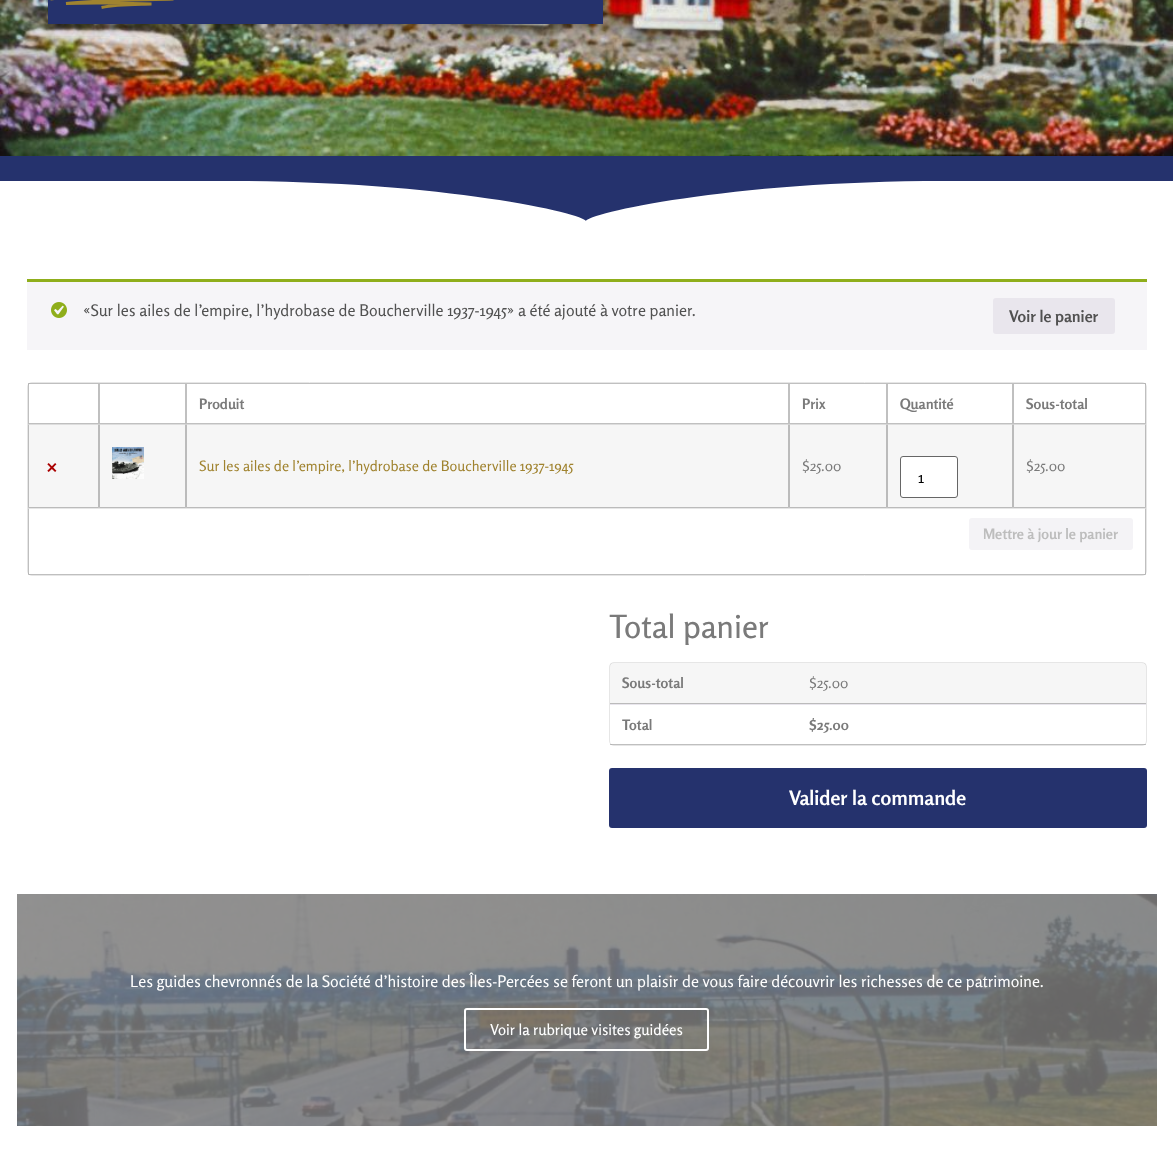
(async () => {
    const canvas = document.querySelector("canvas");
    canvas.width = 1173;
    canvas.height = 1160;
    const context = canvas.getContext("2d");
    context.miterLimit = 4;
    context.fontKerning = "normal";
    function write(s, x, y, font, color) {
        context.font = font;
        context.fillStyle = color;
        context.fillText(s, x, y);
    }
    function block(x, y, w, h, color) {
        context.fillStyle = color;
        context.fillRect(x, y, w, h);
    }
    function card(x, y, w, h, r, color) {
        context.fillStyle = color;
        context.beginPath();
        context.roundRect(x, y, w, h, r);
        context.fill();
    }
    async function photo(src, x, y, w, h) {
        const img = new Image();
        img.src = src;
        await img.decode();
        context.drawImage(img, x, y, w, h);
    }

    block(0, 0, 1173, 1160, "rgb(255, 255, 255)");
    await photo("media/1.png", 0, 0, 1173, 156);
    context.fillStyle = "rgba(0, 0, 0, 0.5)";
    context.filter = "blur(5.5px)";
    context.beginPath();
    context.rect(55, -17, 547, 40);
    context.fill();
    context.filter = "none";
    block(48, 0, 555, 24, "rgb(37, 50, 109)");
    context.beginPath();
    context.moveTo(50.5, -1);
    context.bezierCurveTo(63.5, -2.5, 89, -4, 101.5, -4);
    context.bezierCurveTo(132.5, -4, 150, -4, 173.5, -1);
    context.bezierCurveTo(145, 0, 94.5, 0, 66, 3.5);
    context.bezierCurveTo(87, 2.5, 131, 3, 151.5, 4);
    context.bezierCurveTo(137.5, 4.5, 117, 4, 101.5, 7.5);
    context.strokeStyle = "rgb(160, 131, 47)";
    context.lineWidth = 2.9;
    context.stroke();
    block(0, 156, 1173, 65, "rgb(37, 50, 109)");
    context.fillStyle = "rgb(255, 255, 255)";
    context.beginPath();
    context.moveTo(945, 181);
    context.bezierCurveTo(726, 181, 587, 214, 586, 221);
    context.bezierCurveTo(585, 214, 446, 181, 227, 181);
    context.lineTo(-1, 181);
    context.lineTo(-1, 222);
    context.lineTo(1173, 222);
    context.lineTo(1173, 181);
    context.closePath();
    context.fill();
    block(27, 282, 1120, 68, "rgb(246, 245, 248)");
    block(27, 279, 1120, 3, "rgb(143, 174, 27)");
    await photo("media/2.png", 51, 302, 16, 16);
    write("«Sur les ailes de l’empire, l’hydrobase de Boucherville 1937-1945» a été ajouté à votre panier.", 83, 316, "16px Rosario", "rgb(81, 81, 81)");
    card(993, 298, 122, 36, 3, "rgb(233, 230, 237)");
    write("Voir le panier", 1009, 322, "bold 16px Rosario", "rgb(81, 81, 81)");
    context.beginPath();
    context.roundRect(27.5, 382.5, 1119, 193, 4.5);
    context.strokeStyle = "rgb(230, 230, 230)";
    context.lineWidth = 1;
    context.stroke();
    context.strokeStyle = "rgba(128, 128, 128, 0.5)";
    context.strokeRect(28.5, 383.5, 70, 40);
    context.strokeStyle = "rgb(192, 192, 192)";
    context.strokeRect(99.5, 383.5, 86, 40);
    context.strokeRect(186.5, 383.5, 602, 40);
    write("Produit", 199, 409, "bold 14.4px Rosario", "rgb(122, 122, 122)");
    context.strokeRect(789.5, 383.5, 97, 40);
    write("Prix", 802, 409, "bold 14.4px Rosario", "rgb(122, 122, 122)");
    context.strokeRect(887.5, 383.5, 125, 40);
    write("Quantité", 900, 409, "bold 14.4px Rosario", "rgb(122, 122, 122)");
    context.strokeStyle = "rgba(128, 128, 128, 0.5)";
    context.strokeRect(1013.5, 383.5, 132, 40);
    write("Sous-total", 1026, 409, "bold 14.4px Rosario", "rgb(122, 122, 122)");
    block(28, 424, 1118, 84, "rgb(246, 246, 246)");
    context.fillStyle = "rgb(221, 221, 221)";
    context.beginPath();
    context.moveTo(28, 424);
    context.lineTo(99, 424);
    context.lineTo(98, 425);
    context.lineTo(29, 425);
    context.closePath();
    context.fill();
    context.fillStyle = "rgba(128, 128, 128, 0.5)";
    context.beginPath();
    context.moveTo(99, 424);
    context.lineTo(99, 508);
    context.lineTo(98, 507);
    context.lineTo(98, 425);
    context.closePath();
    context.fill();
    context.beginPath();
    context.moveTo(99, 508);
    context.lineTo(28, 508);
    context.lineTo(29, 507);
    context.lineTo(98, 507);
    context.closePath();
    context.fill();
    context.beginPath();
    context.moveTo(28, 508);
    context.lineTo(28, 424);
    context.lineTo(29, 425);
    context.lineTo(29, 507);
    context.closePath();
    context.fill();
    write("×", 46, 473, "bold 22px Rosario", "rgb(170, 0, 0)");
    context.fillStyle = "rgb(221, 221, 221)";
    context.beginPath();
    context.moveTo(99, 424);
    context.lineTo(186, 424);
    context.lineTo(185, 425);
    context.lineTo(100, 425);
    context.closePath();
    context.fill();
    context.fillStyle = "rgba(128, 128, 128, 0.5)";
    context.beginPath();
    context.moveTo(186, 424);
    context.lineTo(186, 508);
    context.lineTo(185, 507);
    context.lineTo(185, 425);
    context.closePath();
    context.fill();
    context.beginPath();
    context.moveTo(186, 508);
    context.lineTo(99, 508);
    context.lineTo(100, 507);
    context.lineTo(185, 507);
    context.closePath();
    context.fill();
    context.beginPath();
    context.moveTo(99, 508);
    context.lineTo(99, 424);
    context.lineTo(100, 425);
    context.lineTo(100, 507);
    context.closePath();
    context.fill();
    await photo("media/3.png", 112, 447, 32, 32);
    context.fillStyle = "rgb(221, 221, 221)";
    context.beginPath();
    context.moveTo(186, 424);
    context.lineTo(789, 424);
    context.lineTo(788, 425);
    context.lineTo(187, 425);
    context.closePath();
    context.fill();
    context.fillStyle = "rgba(128, 128, 128, 0.5)";
    context.beginPath();
    context.moveTo(789, 424);
    context.lineTo(789, 508);
    context.lineTo(788, 507);
    context.lineTo(788, 425);
    context.closePath();
    context.fill();
    context.beginPath();
    context.moveTo(789, 508);
    context.lineTo(186, 508);
    context.lineTo(187, 507);
    context.lineTo(788, 507);
    context.closePath();
    context.fill();
    context.beginPath();
    context.moveTo(186, 508);
    context.lineTo(186, 424);
    context.lineTo(187, 425);
    context.lineTo(187, 507);
    context.closePath();
    context.fill();
    write("Sur les ailes de l’empire, l’hydrobase de Boucherville 1937-1945", 199, 471, "14.4px Rosario", "rgb(160, 131, 47)");
    context.fillStyle = "rgb(221, 221, 221)";
    context.beginPath();
    context.moveTo(789, 424);
    context.lineTo(887, 424);
    context.lineTo(886, 425);
    context.lineTo(790, 425);
    context.closePath();
    context.fill();
    context.fillStyle = "rgba(128, 128, 128, 0.5)";
    context.beginPath();
    context.moveTo(887, 424);
    context.lineTo(887, 508);
    context.lineTo(886, 507);
    context.lineTo(886, 425);
    context.closePath();
    context.fill();
    context.beginPath();
    context.moveTo(887, 508);
    context.lineTo(789, 508);
    context.lineTo(790, 507);
    context.lineTo(886, 507);
    context.closePath();
    context.fill();
    context.beginPath();
    context.moveTo(789, 508);
    context.lineTo(789, 424);
    context.lineTo(790, 425);
    context.lineTo(790, 507);
    context.closePath();
    context.fill();
    write("$25.00", 802, 471, "14.4px Rosario", "rgb(122, 122, 122)");
    context.fillStyle = "rgb(221, 221, 221)";
    context.beginPath();
    context.moveTo(1013, 424);
    context.lineTo(1146, 424);
    context.lineTo(1145, 425);
    context.lineTo(1014, 425);
    context.closePath();
    context.fill();
    context.fillStyle = "rgba(128, 128, 128, 0.5)";
    context.beginPath();
    context.moveTo(1146, 424);
    context.lineTo(1146, 508);
    context.lineTo(1145, 507);
    context.lineTo(1145, 425);
    context.closePath();
    context.fill();
    context.beginPath();
    context.moveTo(1146, 508);
    context.lineTo(1013, 508);
    context.lineTo(1014, 507);
    context.lineTo(1145, 507);
    context.closePath();
    context.fill();
    context.beginPath();
    context.moveTo(1013, 508);
    context.lineTo(1013, 424);
    context.lineTo(1014, 425);
    context.lineTo(1014, 507);
    context.closePath();
    context.fill();
    write("$25.00", 1026, 471, "14.4px Rosario", "rgb(122, 122, 122)");
    context.fillStyle = "rgb(221, 221, 221)";
    context.beginPath();
    context.moveTo(887, 424);
    context.lineTo(1013, 424);
    context.lineTo(1012, 425);
    context.lineTo(888, 425);
    context.closePath();
    context.fill();
    context.fillStyle = "rgba(128, 128, 128, 0.5)";
    context.beginPath();
    context.moveTo(1013, 424);
    context.lineTo(1013, 508);
    context.lineTo(1012, 507);
    context.lineTo(1012, 425);
    context.closePath();
    context.fill();
    context.beginPath();
    context.moveTo(1013, 508);
    context.lineTo(887, 508);
    context.lineTo(888, 507);
    context.lineTo(1012, 507);
    context.closePath();
    context.fill();
    context.beginPath();
    context.moveTo(887, 508);
    context.lineTo(887, 424);
    context.lineTo(888, 425);
    context.lineTo(888, 507);
    context.closePath();
    context.fill();
    context.fillStyle = "rgb(255, 255, 255)";
    context.beginPath();
    context.roundRect(900.5, 456.5, 57, 41, 2.5);
    context.fill();
    context.strokeStyle = "rgb(102, 102, 102)";
    context.stroke();
    write("1", 918, 483, "16px Rosario", "rgb(0, 0, 0)");
    context.fillStyle = "rgb(230, 230, 230)";
    context.beginPath();
    context.moveTo(28, 508);
    context.lineTo(1146, 508);
    context.lineTo(1145, 509);
    context.lineTo(29, 509);
    context.closePath();
    context.fill();
    context.fillStyle = "rgba(128, 128, 128, 0.5)";
    context.beginPath();
    context.moveTo(1146, 508);
    context.lineTo(1146, 575);
    context.lineTo(1145, 574);
    context.lineTo(1145, 509);
    context.closePath();
    context.fill();
    context.beginPath();
    context.moveTo(1146, 575);
    context.lineTo(28, 575);
    context.lineTo(29, 574);
    context.lineTo(1145, 574);
    context.closePath();
    context.fill();
    context.beginPath();
    context.moveTo(28, 575);
    context.lineTo(28, 508);
    context.lineTo(29, 509);
    context.lineTo(29, 574);
    context.closePath();
    context.fill();
    card(969, 518, 164, 32, 3, "rgb(244, 243, 246)");
    write("Mettre à jour le panier", 983, 539, "bold 14.4px Rosario", "rgb(189, 189, 189)");
    write("Total panier", 609, 638, "500 32px Rosario", "rgb(122, 122, 122)");
    context.beginPath();
    context.roundRect(609.5, 662.5, 537, 83, 4.5);
    context.strokeStyle = "rgb(230, 230, 230)";
    context.stroke();
    block(610, 663, 187, 40, "rgba(128, 128, 128, 0.07)");
    block(610, 703, 536, 1, "rgb(187, 187, 187)");
    write("Sous-total", 622, 688, "bold 14.4px Rosario", "rgb(122, 122, 122)");
    block(797, 663, 349, 40, "rgba(128, 128, 128, 0.07)");
    write("$25.00", 809, 688, "14.4px Rosario", "rgb(122, 122, 122)");
    block(610, 704, 536, 1, "rgb(233, 230, 237)");
    block(610, 744, 187, 1, "rgba(128, 128, 128, 0.5)");
    write("Total", 622, 730, "bold 14.4px Rosario", "rgb(122, 122, 122)");
    block(797, 744, 349, 1, "rgba(128, 128, 128, 0.5)");
    write("$25.00", 809, 730, "bold 14.4px Rosario", "rgb(122, 122, 122)");
    card(609, 768, 538, 60, 3, "rgb(37, 50, 109)");
    write("Valider la commande", 789, 805, "bold 20px Rosario", "rgb(255, 255, 255)");
    await photo("media/4.png", 17, 894, 1140, 232);
    write("Les guides chevronnés de la Société d’histoire des Îles-Percées se feront un plaisir de vous faire découvrir les richesses de ce patrimoine.", 130, 987, "16px Rosario", "rgb(255, 255, 255)");
    context.beginPath();
    context.roundRect(465, 1009, 243, 41, 2);
    context.strokeStyle = "rgb(255, 255, 255)";
    context.lineWidth = 2;
    context.stroke();
    write("Voir la rubrique visites guidées", 490, 1035, "500 15px Rosario", "rgb(255, 255, 255)");
})();
